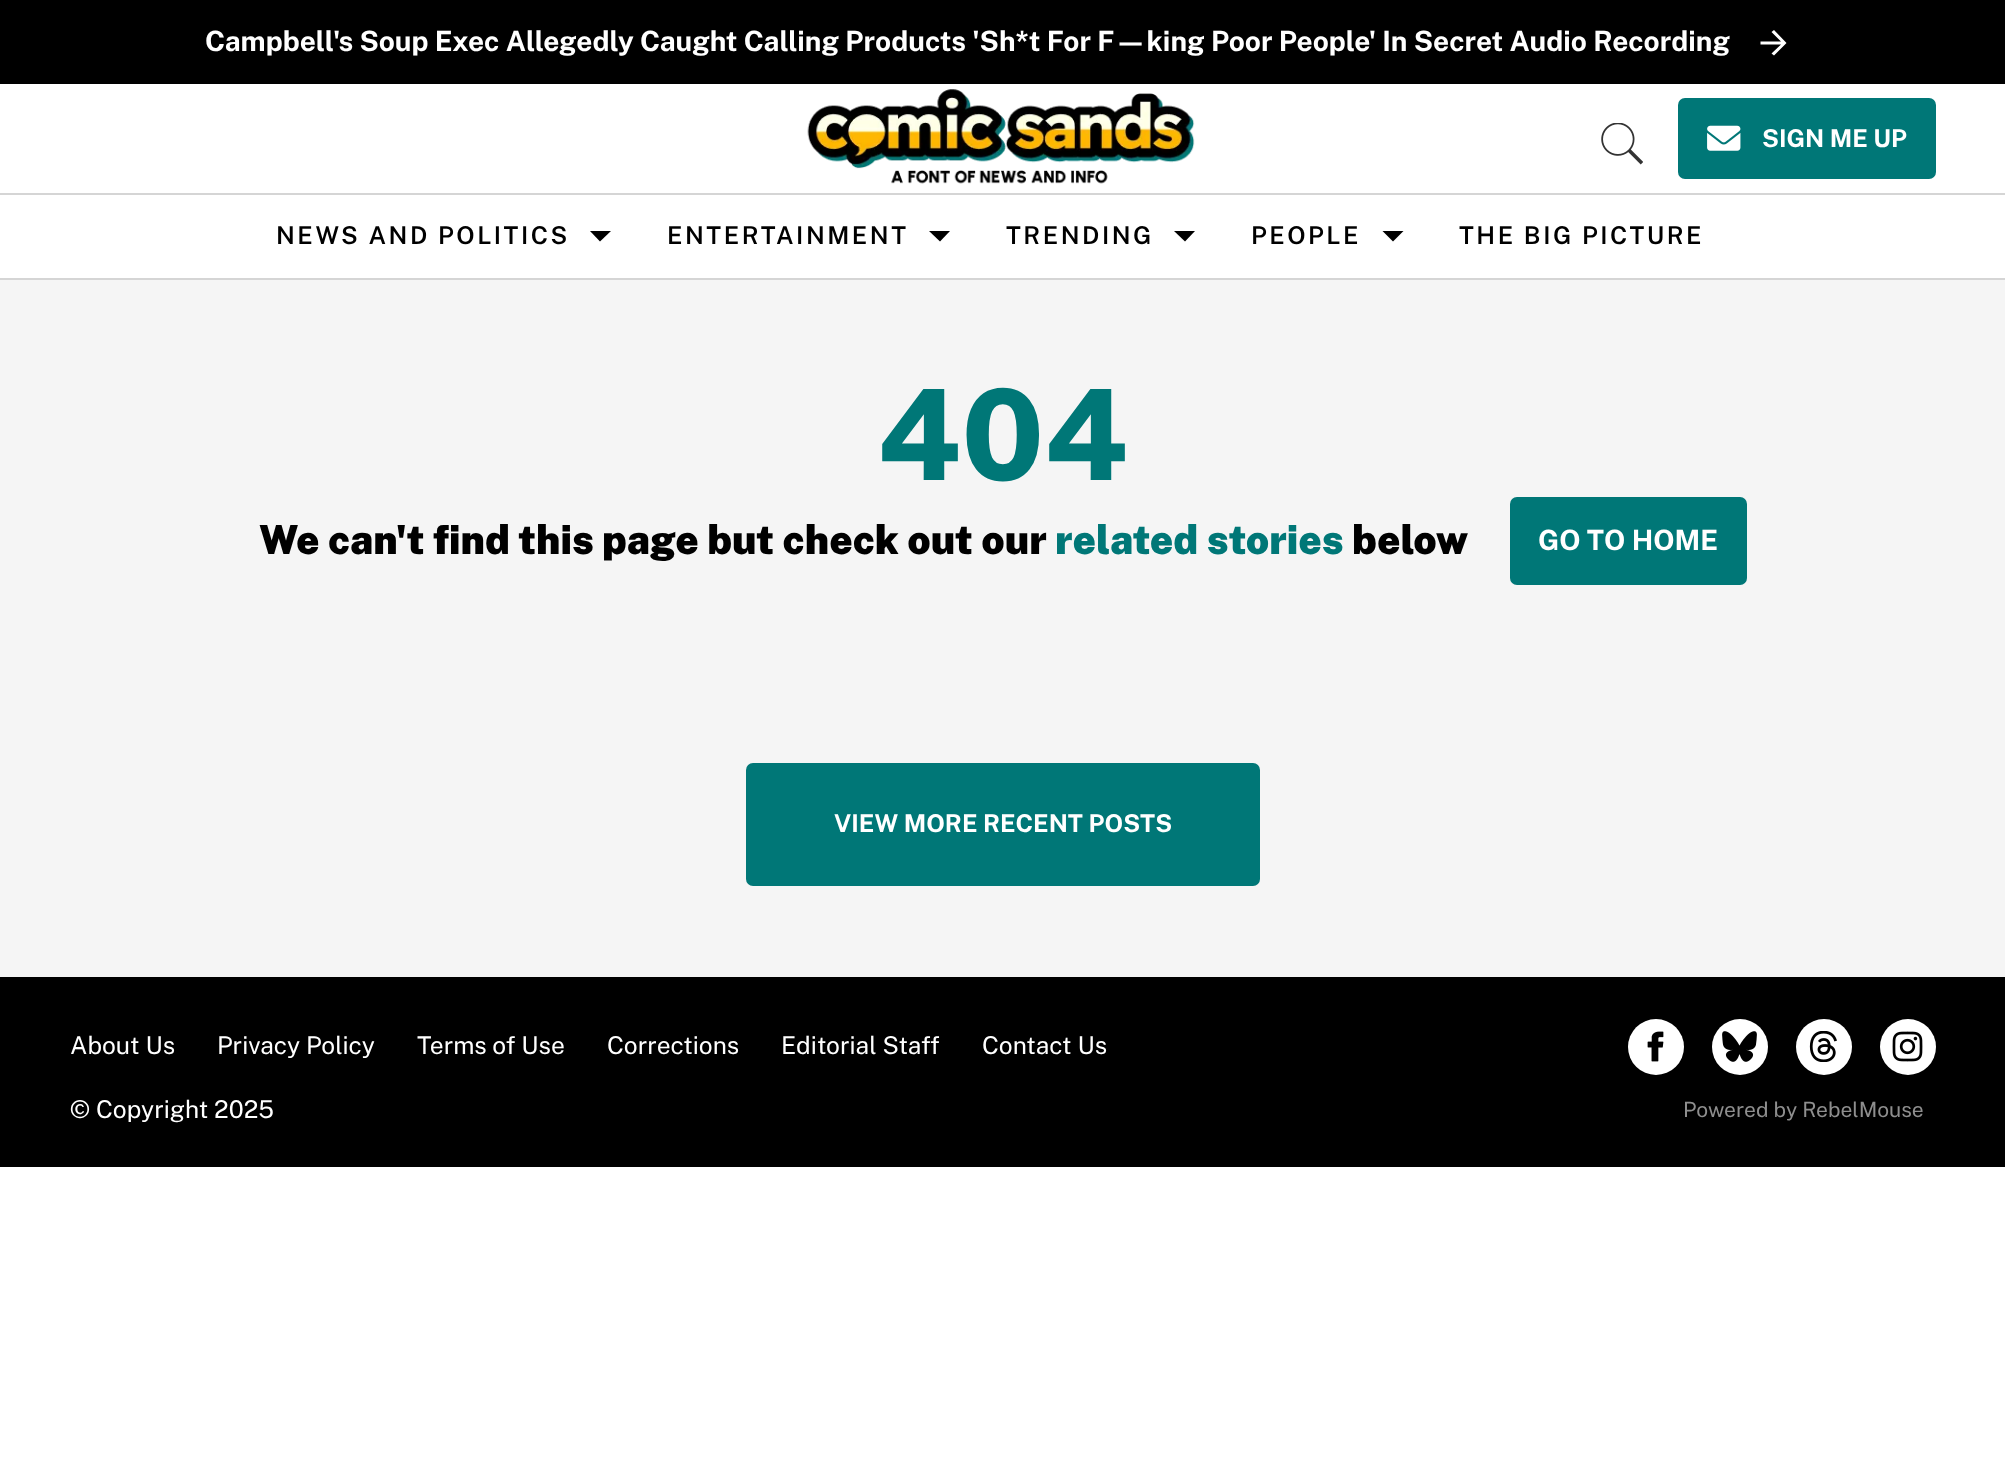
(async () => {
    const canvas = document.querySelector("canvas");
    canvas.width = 2005;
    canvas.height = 1477;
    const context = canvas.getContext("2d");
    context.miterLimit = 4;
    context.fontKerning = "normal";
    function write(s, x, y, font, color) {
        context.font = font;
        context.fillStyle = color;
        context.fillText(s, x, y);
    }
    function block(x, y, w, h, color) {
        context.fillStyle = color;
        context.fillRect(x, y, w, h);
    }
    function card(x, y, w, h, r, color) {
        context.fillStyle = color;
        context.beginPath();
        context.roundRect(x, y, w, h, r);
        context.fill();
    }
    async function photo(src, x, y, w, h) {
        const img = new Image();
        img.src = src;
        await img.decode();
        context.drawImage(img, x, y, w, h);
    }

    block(0, 0, 2005, 1477, "rgb(255, 255, 255)");
    block(0, 280, 2005, 697, "rgb(245, 245, 245)");
    block(0, 0, 2005, 84, "rgb(0, 0, 0)");
    write("Campbell's Soup Exec Allegedly Caught Calling Products 'Sh*t For F—king Poor People' In Secret Audio Recording", 205, 51, "bold 28px Public Sans", "rgb(255, 255, 255)");
    context.beginPath();
    context.moveTo(1774, 30);
    context.lineTo(1771.5, 32);
    context.lineTo(1781, 41.5);
    context.lineTo(1760.5, 41.5);
    context.lineTo(1760.5, 44.5);
    context.lineTo(1781, 44.5);
    context.lineTo(1771.5, 53.5);
    context.lineTo(1774, 55.5);
    context.lineTo(1786.5, 43);
    context.closePath();
    context.fill();
    await photo("media/1.png", 807, 89, 388, 95);
    await photo("media/2.png", 1601, 123, 42, 42);
    card(1678, 98, 258, 81, 7, "rgb(0, 119, 119)");
    await photo("media/3.png", 1707, 125, 34, 26);
    write("SIGN ME UP", 1762, 147, "bold 24.5px Public Sans", "rgb(255, 255, 255)");
    block(0, 193, 2005, 2, "rgb(213, 213, 213)");
    block(0, 278, 2005, 2, "rgb(213, 213, 213)");
    context.letterSpacing = "2.5px";
    write("NEWS AND POLITICS", 276, 244, "600 24.5px Public Sans", "rgb(0, 0, 0)");
    context.beginPath();
    context.moveTo(590, 231);
    context.lineTo(611, 231);
    context.lineTo(600, 241.5);
    context.closePath();
    context.fill();
    write("ENTERTAINMENT", 667, 244, "600 24.5px Public Sans", "rgb(0, 0, 0)");
    context.beginPath();
    context.moveTo(929, 231);
    context.lineTo(950, 231);
    context.lineTo(940, 241.5);
    context.closePath();
    context.fill();
    write("TRENDING", 1006, 244, "600 24.5px Public Sans", "rgb(0, 0, 0)");
    context.beginPath();
    context.moveTo(1174, 231);
    context.lineTo(1195, 231);
    context.lineTo(1185, 241.5);
    context.closePath();
    context.fill();
    write("PEOPLE", 1251, 244, "600 24.5px Public Sans", "rgb(0, 0, 0)");
    context.beginPath();
    context.moveTo(1382.5, 231);
    context.lineTo(1403.5, 231);
    context.lineTo(1393, 241.5);
    context.closePath();
    context.fill();
    write("THE BIG PICTURE", 1459, 244, "600 24.5px Public Sans", "rgb(0, 0, 0)");
    context.letterSpacing = "0px";
    write("404", 877, 480, "800 126px Public Sans", "rgb(0, 119, 119)");
    write("We can't find this page but check out our", 259, 554, "900 40.25px Public Sans", "rgb(0, 0, 0)");
    write("related stories", 1055, 554, "900 40.25px Public Sans", "rgb(0, 119, 119)");
    write("below", 1352, 554, "900 40.25px Public Sans", "rgb(0, 0, 0)");
    card(1510, 497, 237, 88, 7, "rgb(0, 119, 119)");
    write("GO TO HOME", 1538, 550, "bold 28px Public Sans", "rgb(255, 255, 255)");
    card(746, 763, 514, 123, 7, "rgb(0, 119, 119)");
    write("VIEW MORE RECENT POSTS", 834, 832, "bold 24.5px Public Sans", "rgb(255, 255, 255)");
    block(0, 977, 2005, 190, "rgb(0, 0, 0)");
    write("About Us", 70, 1054, "24.5px Public Sans", "rgb(255, 255, 255)");
    write("Privacy Policy", 217, 1054, "24.5px Public Sans", "rgb(255, 255, 255)");
    write("Terms of Use", 417, 1054, "24.5px Public Sans", "rgb(255, 255, 255)");
    write("Corrections", 607, 1054, "24.5px Public Sans", "rgb(255, 255, 255)");
    write("Editorial Staff", 781, 1054, "24.5px Public Sans", "rgb(255, 255, 255)");
    write("Contact Us", 982, 1054, "24.5px Public Sans", "rgb(255, 255, 255)");
    context.beginPath();
    context.arc(1656, 1047, 28, 0, Math.PI * 2);
    context.fill();
    await photo("media/4.png", 1647, 1031, 17, 31);
    context.beginPath();
    context.arc(1740, 1047, 28, 0, Math.PI * 2);
    context.fill();
    await photo("media/5.png", 1722, 1031, 35, 31);
    context.beginPath();
    context.arc(1824, 1047, 28, 0, Math.PI * 2);
    context.fill();
    await photo("media/6.png", 1809, 1031, 28, 31);
    context.beginPath();
    context.arc(1908, 1047, 28, 0, Math.PI * 2);
    context.fill();
    await photo("media/7.png", 1892, 1031, 31, 31);
    write("© Copyright 2025", 70, 1118, "24.5px Public Sans", "rgb(255, 255, 255)");
    write("Powered by RebelMouse", 1683, 1117, "21px Public Sans", "rgb(142, 142, 142)");
})();
